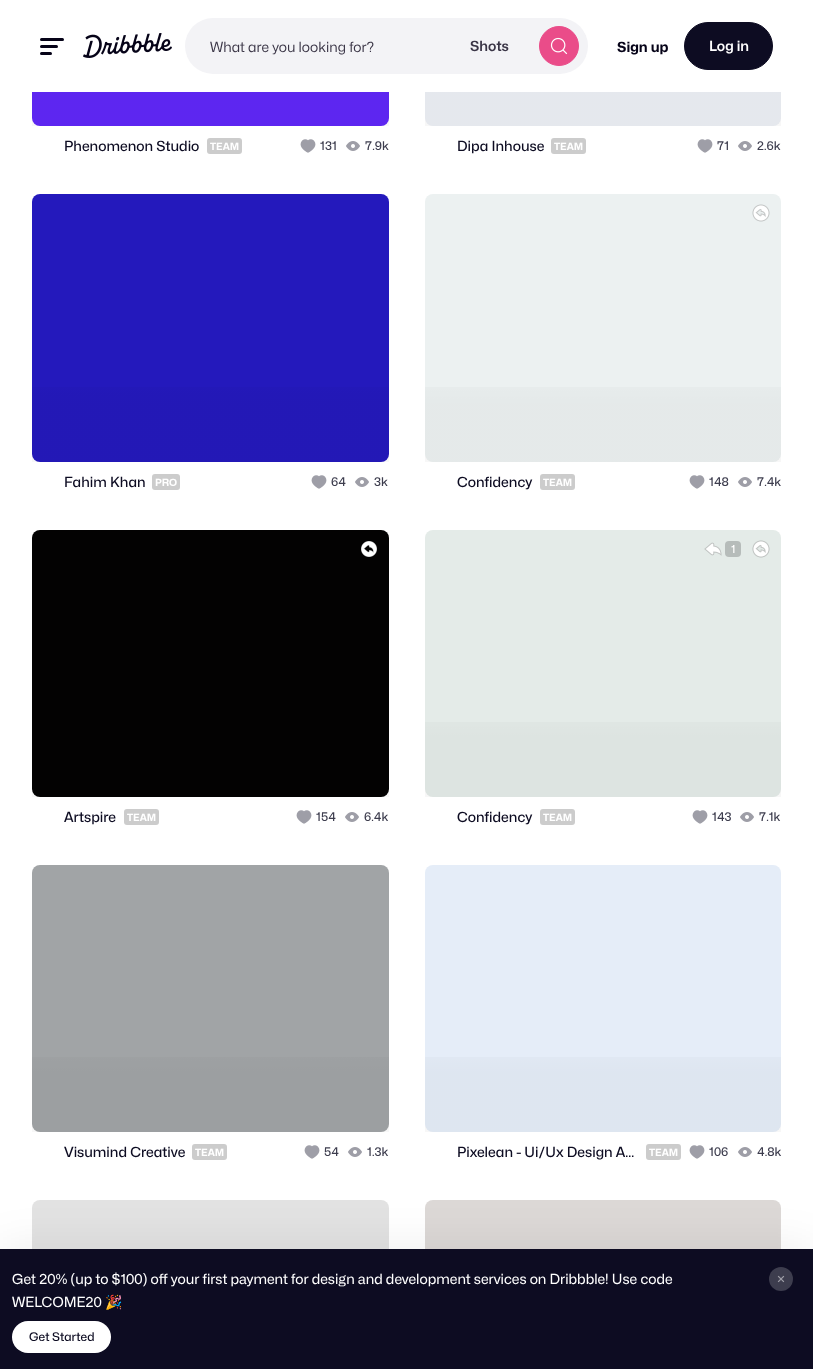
(async () => {
    const canvas = document.querySelector("canvas");
    canvas.width = 813;
    canvas.height = 1369;
    const context = canvas.getContext("2d");
    context.miterLimit = 4;
    context.fontKerning = "normal";
    function write(s, x, y, font, color) {
        context.font = font;
        context.fillStyle = color;
        context.fillText(s, x, y);
    }
    function block(x, y, w, h, color) {
        context.fillStyle = color;
        context.fillRect(x, y, w, h);
    }
    function card(x, y, w, h, r, color) {
        context.fillStyle = color;
        context.beginPath();
        context.roundRect(x, y, w, h, r);
        context.fill();
    }
    async function photo(src, x, y, w, h) {
        const img = new Image();
        img.src = src;
        await img.decode();
        context.drawImage(img, x, y, w, h);
    }
    let gradient;

    block(0, 0, 813, 1369, "rgb(255, 255, 255)");
    card(32, -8, 357, 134, 8, "rgb(96, 39, 248)");
    card(425, -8, 356, 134, 8, "rgb(236, 239, 245)");
    block(32, 0, 749, 92, "rgb(255, 255, 255)");
    card(40, 38, 24, 3, 1.5, "rgb(6, 3, 24)");
    card(40, 45, 18, 3, 1.5, "rgb(6, 3, 24)");
    card(40, 52, 12, 3, 1.5, "rgb(6, 3, 24)");
    await photo("media/1.png", 83, 33, 89, 25);
    card(185, 18, 403, 56, 28, "rgb(243, 243, 246)");
    write("What are you looking for?", 210, 52, "14px 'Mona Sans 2'", "rgb(58, 53, 70)");
    write("Shots", 470, 51, "600 14px Mona Sans", "rgb(58, 53, 70)");
    context.fillStyle = "rgb(234, 76, 137)";
    context.beginPath();
    context.arc(559, 46, 19.5, 0, Math.PI * 2);
    context.fill();
    context.strokeStyle = "rgb(234, 76, 137)";
    context.stroke();
    await photo("media/2.png", 550, 37, 18, 18);
    write("Sign up", 617, 52, "bold 14px Mona Sans", "rgb(6, 3, 24)");
    context.fillStyle = "rgb(13, 12, 34)";
    context.beginPath();
    context.roundRect(684.5, 22.5, 88, 47, 23.5);
    context.fill();
    context.strokeStyle = "rgb(13, 12, 34)";
    context.stroke();
    write("Log in", 709, 51, "600 14px Mona Sans", "rgb(255, 255, 255)");
    gradient = context.createLinearGradient(210, -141, 211, 126);
    gradient.addColorStop(0, "rgba(0, 0, 0, 0)");
    gradient.addColorStop(0.15, "rgba(0, 0, 0, 0)");
    gradient.addColorStop(0.23, "rgba(0, 0, 0, 0)");
    gradient.addColorStop(0.29, "rgba(0, 0, 0, 0)");
    gradient.addColorStop(0.35, "rgba(0, 0, 0, 0.01)");
    gradient.addColorStop(0.41, "rgba(0, 0, 0, 0.01)");
    gradient.addColorStop(0.47, "rgba(0, 0, 0, 0.02)");
    gradient.addColorStop(0.53, "rgba(0, 0, 0, 0.02)");
    gradient.addColorStop(0.59, "rgba(0, 0, 0, 0.02)");
    gradient.addColorStop(0.65, "rgba(0, 0, 0, 0.02)");
    gradient.addColorStop(0.71, "rgba(0, 0, 0, 0.02)");
    gradient.addColorStop(0.78, "rgba(0, 0, 0, 0.03)");
    gradient.addColorStop(0.84, "rgba(0, 0, 0, 0.03)");
    gradient.addColorStop(0.92, "rgba(0, 0, 0, 0.03)");
    gradient.addColorStop(1, "rgba(0, 0, 0, 0.03)");
    context.fillStyle = gradient;
    context.fillRect(32, 92, 357, 34);
    write("Phenomenon Studio", 64, 151, "500 14px Mona Sans", "rgb(13, 12, 34)");
    card(207, 138, 35, 16, 3, "rgb(204, 204, 204)");
    write("TEAM", 210, 150, "bold 10px Mona Sans", "rgb(255, 255, 255)");
    await photo("media/3.png", 300, 139, 16, 14);
    write("131", 320, 150, "500 12px Mona Sans", "rgb(61, 61, 78)");
    await photo("media/4.png", 346, 141, 14, 10);
    write("7.9k", 365, 150, "500 12px Mona Sans", "rgb(61, 61, 78)");
    gradient = context.createLinearGradient(603, -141, 603, 126);
    gradient.addColorStop(0, "rgba(0, 0, 0, 0)");
    gradient.addColorStop(0.15, "rgba(0, 0, 0, 0)");
    gradient.addColorStop(0.23, "rgba(0, 0, 0, 0)");
    gradient.addColorStop(0.29, "rgba(0, 0, 0, 0)");
    gradient.addColorStop(0.35, "rgba(0, 0, 0, 0.01)");
    gradient.addColorStop(0.41, "rgba(0, 0, 0, 0.01)");
    gradient.addColorStop(0.47, "rgba(0, 0, 0, 0.02)");
    gradient.addColorStop(0.53, "rgba(0, 0, 0, 0.02)");
    gradient.addColorStop(0.59, "rgba(0, 0, 0, 0.02)");
    gradient.addColorStop(0.65, "rgba(0, 0, 0, 0.02)");
    gradient.addColorStop(0.71, "rgba(0, 0, 0, 0.02)");
    gradient.addColorStop(0.78, "rgba(0, 0, 0, 0.03)");
    gradient.addColorStop(0.84, "rgba(0, 0, 0, 0.03)");
    gradient.addColorStop(0.92, "rgba(0, 0, 0, 0.03)");
    gradient.addColorStop(1, "rgba(0, 0, 0, 0.03)");
    context.fillStyle = gradient;
    context.fillRect(425, 92, 356, 34);
    write("Dipa Inhouse", 457, 151, "500 14px Mona Sans", "rgb(13, 12, 34)");
    card(551, 138, 35, 16, 3, "rgb(204, 204, 204)");
    write("TEAM", 554, 150, "bold 10px Mona Sans", "rgb(255, 255, 255)");
    await photo("media/3.png", 697, 139, 16, 14);
    write("71", 717, 150, "500 12px Mona Sans", "rgb(61, 61, 78)");
    await photo("media/4.png", 738, 141, 14, 10);
    write("2.6k", 757, 150, "500 12px Mona Sans", "rgb(61, 61, 78)");
    card(32, 194, 357, 268, 8, "rgb(36, 25, 188)");
    gradient = context.createLinearGradient(210, 194, 211, 462);
    gradient.addColorStop(0, "rgba(0, 0, 0, 0)");
    gradient.addColorStop(0.15, "rgba(0, 0, 0, 0)");
    gradient.addColorStop(0.23, "rgba(0, 0, 0, 0)");
    gradient.addColorStop(0.29, "rgba(0, 0, 0, 0)");
    gradient.addColorStop(0.35, "rgba(0, 0, 0, 0.01)");
    gradient.addColorStop(0.41, "rgba(0, 0, 0, 0.01)");
    gradient.addColorStop(0.47, "rgba(0, 0, 0, 0.02)");
    gradient.addColorStop(0.53, "rgba(0, 0, 0, 0.02)");
    gradient.addColorStop(0.59, "rgba(0, 0, 0, 0.02)");
    gradient.addColorStop(0.65, "rgba(0, 0, 0, 0.02)");
    gradient.addColorStop(0.71, "rgba(0, 0, 0, 0.02)");
    gradient.addColorStop(0.78, "rgba(0, 0, 0, 0.03)");
    gradient.addColorStop(0.84, "rgba(0, 0, 0, 0.03)");
    gradient.addColorStop(0.92, "rgba(0, 0, 0, 0.03)");
    gradient.addColorStop(1, "rgba(0, 0, 0, 0.03)");
    context.fillStyle = gradient;
    context.fillRect(32, 387, 357, 75);
    write("Fahim Khan", 64, 487, "500 14px Mona Sans", "rgb(13, 12, 34)");
    card(152, 474, 28, 16, 3, "rgb(204, 204, 204)");
    write("PRO", 155, 486, "bold 10px Mona Sans", "rgb(255, 255, 255)");
    await photo("media/3.png", 311, 475, 16, 14);
    write("64", 331, 486, "500 12px Mona Sans", "rgb(61, 61, 78)");
    await photo("media/4.png", 355, 477, 14, 10);
    write("3k", 374, 486, "500 12px Mona Sans", "rgb(61, 61, 78)");
    card(425, 194, 356, 268, 8, "rgb(236, 241, 241)");
    await photo("media/5.png", 752, 204, 18, 18);
    gradient = context.createLinearGradient(603, 194, 603, 462);
    gradient.addColorStop(0, "rgba(0, 0, 0, 0)");
    gradient.addColorStop(0.15, "rgba(0, 0, 0, 0)");
    gradient.addColorStop(0.23, "rgba(0, 0, 0, 0)");
    gradient.addColorStop(0.29, "rgba(0, 0, 0, 0)");
    gradient.addColorStop(0.35, "rgba(0, 0, 0, 0.01)");
    gradient.addColorStop(0.41, "rgba(0, 0, 0, 0.01)");
    gradient.addColorStop(0.47, "rgba(0, 0, 0, 0.02)");
    gradient.addColorStop(0.53, "rgba(0, 0, 0, 0.02)");
    gradient.addColorStop(0.59, "rgba(0, 0, 0, 0.02)");
    gradient.addColorStop(0.65, "rgba(0, 0, 0, 0.02)");
    gradient.addColorStop(0.71, "rgba(0, 0, 0, 0.02)");
    gradient.addColorStop(0.78, "rgba(0, 0, 0, 0.03)");
    gradient.addColorStop(0.84, "rgba(0, 0, 0, 0.03)");
    gradient.addColorStop(0.92, "rgba(0, 0, 0, 0.03)");
    gradient.addColorStop(1, "rgba(0, 0, 0, 0.03)");
    context.fillStyle = gradient;
    context.fillRect(425, 387, 356, 75);
    write("Confidency", 457, 487, "500 14px Mona Sans", "rgb(13, 12, 34)");
    card(540, 474, 35, 16, 3, "rgb(204, 204, 204)");
    write("TEAM", 543, 486, "bold 10px Mona Sans", "rgb(255, 255, 255)");
    await photo("media/3.png", 689, 475, 16, 14);
    write("148", 709, 486, "500 12px Mona Sans", "rgb(61, 61, 78)");
    await photo("media/4.png", 738, 477, 14, 10);
    write("7.4k", 757, 486, "500 12px Mona Sans", "rgb(61, 61, 78)");
    card(32, 530, 357, 267, 8, "rgb(3, 2, 2)");
    await photo("media/6.png", 361, 541, 16, 16);
    gradient = context.createLinearGradient(210, 530, 211, 797);
    gradient.addColorStop(0, "rgba(0, 0, 0, 0)");
    gradient.addColorStop(0.15, "rgba(0, 0, 0, 0)");
    gradient.addColorStop(0.23, "rgba(0, 0, 0, 0)");
    gradient.addColorStop(0.29, "rgba(0, 0, 0, 0)");
    gradient.addColorStop(0.35, "rgba(0, 0, 0, 0.01)");
    gradient.addColorStop(0.41, "rgba(0, 0, 0, 0.01)");
    gradient.addColorStop(0.47, "rgba(0, 0, 0, 0.02)");
    gradient.addColorStop(0.53, "rgba(0, 0, 0, 0.02)");
    gradient.addColorStop(0.59, "rgba(0, 0, 0, 0.02)");
    gradient.addColorStop(0.65, "rgba(0, 0, 0, 0.02)");
    gradient.addColorStop(0.71, "rgba(0, 0, 0, 0.02)");
    gradient.addColorStop(0.78, "rgba(0, 0, 0, 0.03)");
    gradient.addColorStop(0.84, "rgba(0, 0, 0, 0.03)");
    gradient.addColorStop(0.92, "rgba(0, 0, 0, 0.03)");
    gradient.addColorStop(1, "rgba(0, 0, 0, 0.03)");
    context.fillStyle = gradient;
    context.fillRect(32, 791, 357, 6);
    write("Artspire", 64, 822, "500 14px Mona Sans", "rgb(13, 12, 34)");
    card(124, 809, 35, 16, 3, "rgb(204, 204, 204)");
    write("TEAM", 127, 821, "bold 10px Mona Sans", "rgb(255, 255, 255)");
    await photo("media/3.png", 296, 810, 16, 14);
    write("154", 316, 821, "500 12px Mona Sans", "rgb(61, 61, 78)");
    await photo("media/4.png", 345, 812, 14, 10);
    write("6.4k", 364, 821, "500 12px Mona Sans", "rgb(61, 61, 78)");
    card(425, 530, 356, 267, 8, "rgb(228, 235, 232)");
    await photo("media/7.png", 704, 542, 18, 14);
    card(725, 541, 16, 16, 4, "rgb(182, 188, 186)");
    write("1", 731, 553, "500 11px Mona Sans", "rgb(255, 255, 255)");
    await photo("media/8.png", 752, 540, 18, 18);
    gradient = context.createLinearGradient(603, 530, 603, 797);
    gradient.addColorStop(0, "rgba(0, 0, 0, 0)");
    gradient.addColorStop(0.15, "rgba(0, 0, 0, 0)");
    gradient.addColorStop(0.23, "rgba(0, 0, 0, 0)");
    gradient.addColorStop(0.29, "rgba(0, 0, 0, 0)");
    gradient.addColorStop(0.35, "rgba(0, 0, 0, 0.01)");
    gradient.addColorStop(0.41, "rgba(0, 0, 0, 0.01)");
    gradient.addColorStop(0.47, "rgba(0, 0, 0, 0.02)");
    gradient.addColorStop(0.53, "rgba(0, 0, 0, 0.02)");
    gradient.addColorStop(0.59, "rgba(0, 0, 0, 0.02)");
    gradient.addColorStop(0.65, "rgba(0, 0, 0, 0.02)");
    gradient.addColorStop(0.71, "rgba(0, 0, 0, 0.02)");
    gradient.addColorStop(0.78, "rgba(0, 0, 0, 0.03)");
    gradient.addColorStop(0.84, "rgba(0, 0, 0, 0.03)");
    gradient.addColorStop(0.92, "rgba(0, 0, 0, 0.03)");
    gradient.addColorStop(1, "rgba(0, 0, 0, 0.03)");
    context.fillStyle = gradient;
    context.fillRect(425, 722, 356, 75);
    write("Confidency", 457, 822, "500 14px Mona Sans", "rgb(13, 12, 34)");
    card(540, 809, 35, 16, 3, "rgb(204, 204, 204)");
    write("TEAM", 543, 821, "bold 10px Mona Sans", "rgb(255, 255, 255)");
    await photo("media/3.png", 692, 810, 16, 14);
    write("143", 712, 821, "500 12px Mona Sans", "rgb(61, 61, 78)");
    await photo("media/4.png", 740, 812, 14, 10);
    write("7.1k", 759, 821, "500 12px Mona Sans", "rgb(61, 61, 78)");
    card(32, 865, 357, 267, 8, "rgb(161, 164, 166)");
    gradient = context.createLinearGradient(210, 865, 211, 1132);
    gradient.addColorStop(0, "rgba(0, 0, 0, 0)");
    gradient.addColorStop(0.15, "rgba(0, 0, 0, 0)");
    gradient.addColorStop(0.23, "rgba(0, 0, 0, 0)");
    gradient.addColorStop(0.29, "rgba(0, 0, 0, 0)");
    gradient.addColorStop(0.35, "rgba(0, 0, 0, 0.01)");
    gradient.addColorStop(0.41, "rgba(0, 0, 0, 0.01)");
    gradient.addColorStop(0.47, "rgba(0, 0, 0, 0.02)");
    gradient.addColorStop(0.53, "rgba(0, 0, 0, 0.02)");
    gradient.addColorStop(0.59, "rgba(0, 0, 0, 0.02)");
    gradient.addColorStop(0.65, "rgba(0, 0, 0, 0.02)");
    gradient.addColorStop(0.71, "rgba(0, 0, 0, 0.02)");
    gradient.addColorStop(0.78, "rgba(0, 0, 0, 0.03)");
    gradient.addColorStop(0.84, "rgba(0, 0, 0, 0.03)");
    gradient.addColorStop(0.92, "rgba(0, 0, 0, 0.03)");
    gradient.addColorStop(1, "rgba(0, 0, 0, 0.03)");
    context.fillStyle = gradient;
    context.fillRect(32, 1057, 357, 75);
    write("Visumind Creative", 64, 1157, "500 14px Mona Sans", "rgb(13, 12, 34)");
    card(192, 1144, 35, 16, 3, "rgb(204, 204, 204)");
    write("TEAM", 195, 1156, "bold 10px Mona Sans", "rgb(255, 255, 255)");
    await photo("media/3.png", 304, 1145, 16, 14);
    write("54", 324, 1156, "500 12px Mona Sans", "rgb(61, 61, 78)");
    await photo("media/4.png", 348, 1147, 14, 10);
    write("1.3k", 367, 1156, "500 12px Mona Sans", "rgb(61, 61, 78)");
    card(425, 865, 356, 267, 8, "rgb(229, 237, 248)");
    gradient = context.createLinearGradient(603, 865, 603, 1132);
    gradient.addColorStop(0, "rgba(0, 0, 0, 0)");
    gradient.addColorStop(0.15, "rgba(0, 0, 0, 0)");
    gradient.addColorStop(0.23, "rgba(0, 0, 0, 0)");
    gradient.addColorStop(0.29, "rgba(0, 0, 0, 0)");
    gradient.addColorStop(0.35, "rgba(0, 0, 0, 0.01)");
    gradient.addColorStop(0.41, "rgba(0, 0, 0, 0.01)");
    gradient.addColorStop(0.47, "rgba(0, 0, 0, 0.02)");
    gradient.addColorStop(0.53, "rgba(0, 0, 0, 0.02)");
    gradient.addColorStop(0.59, "rgba(0, 0, 0, 0.02)");
    gradient.addColorStop(0.65, "rgba(0, 0, 0, 0.02)");
    gradient.addColorStop(0.71, "rgba(0, 0, 0, 0.02)");
    gradient.addColorStop(0.78, "rgba(0, 0, 0, 0.03)");
    gradient.addColorStop(0.84, "rgba(0, 0, 0, 0.03)");
    gradient.addColorStop(0.92, "rgba(0, 0, 0, 0.03)");
    gradient.addColorStop(1, "rgba(0, 0, 0, 0.03)");
    context.fillStyle = gradient;
    context.fillRect(425, 1057, 356, 75);
    write("Pixelean - Ui/Ux Design A…", 457, 1157, "500 14px Mona Sans", "rgb(13, 12, 34)");
    card(646, 1144, 35, 16, 3, "rgb(204, 204, 204)");
    write("TEAM", 649, 1156, "bold 10px Mona Sans", "rgb(255, 255, 255)");
    await photo("media/3.png", 689, 1145, 16, 14);
    write("106", 709, 1156, "500 12px Mona Sans", "rgb(61, 61, 78)");
    await photo("media/4.png", 738, 1147, 14, 10);
    write("4.8k", 757, 1156, "500 12px Mona Sans", "rgb(61, 61, 78)");
    card(32, 1200, 357, 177, 8, "rgb(226, 226, 226)");
    card(425, 1200, 356, 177, 8, "rgb(220, 216, 214)");
    context.fillStyle = "rgba(0, 0, 0, 0.06)";
    context.filter = "blur(20px)";
    context.beginPath();
    context.rect(0, 1243, 813, 120);
    context.fill();
    context.filter = "none";
    block(0, 1249, 813, 120, "rgb(13, 12, 34)");
    write("Get 20% (up to $100) off your first payment for design and development services on Dribbble! Use code", 12, 1284, "14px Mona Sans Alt", "rgb(255, 255, 255)");
    write("WELCOME20", 12, 1307, "14px Mona Sans", "rgb(255, 255, 255)");
    write("🎉", 105, 1307, "14px Noto Color Emoji", "rgb(255, 255, 255)");
    card(12, 1321, 99, 32, 16, "rgb(255, 255, 255)");
    write("Get Started", 29, 1341, "500 12px Mona Sans", "rgb(13, 12, 34)");
    context.fillStyle = "rgb(61, 61, 78)";
    context.beginPath();
    context.arc(781, 1279, 12, 0, Math.PI * 2);
    context.fill();
    await photo("media/9.png", 777, 1275, 8, 8);
})();
